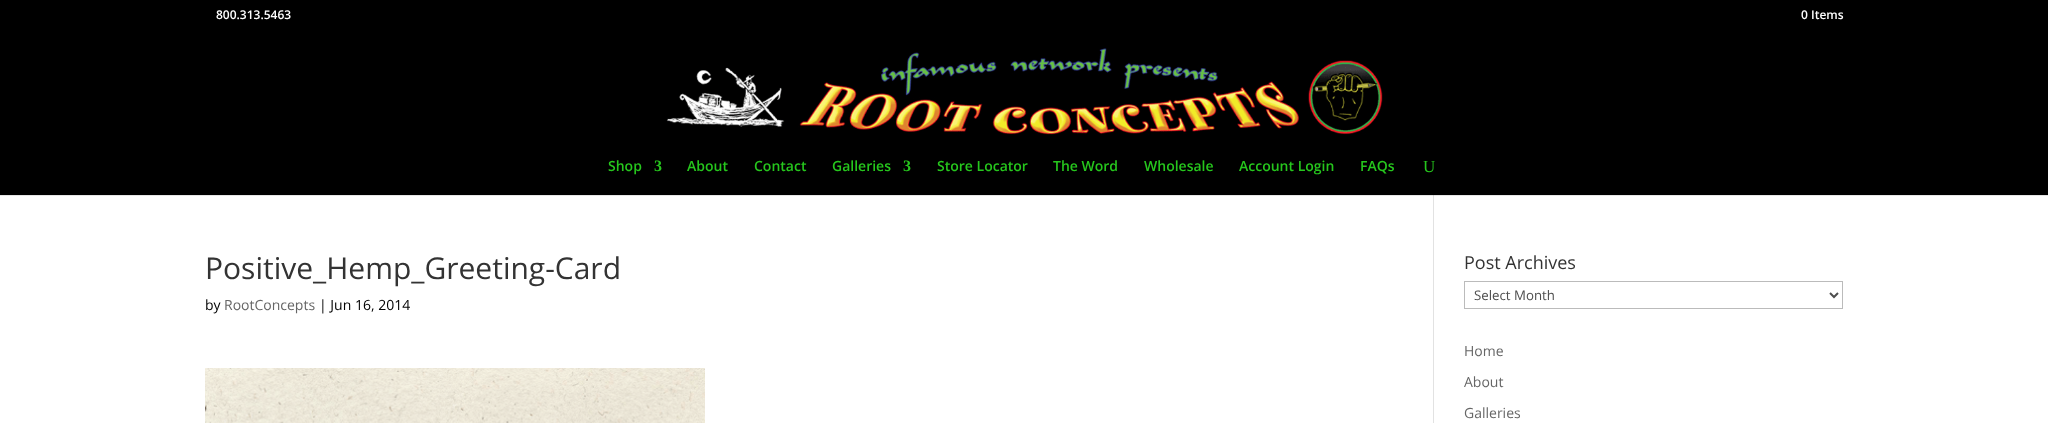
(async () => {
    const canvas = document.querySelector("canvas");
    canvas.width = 2048;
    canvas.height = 423;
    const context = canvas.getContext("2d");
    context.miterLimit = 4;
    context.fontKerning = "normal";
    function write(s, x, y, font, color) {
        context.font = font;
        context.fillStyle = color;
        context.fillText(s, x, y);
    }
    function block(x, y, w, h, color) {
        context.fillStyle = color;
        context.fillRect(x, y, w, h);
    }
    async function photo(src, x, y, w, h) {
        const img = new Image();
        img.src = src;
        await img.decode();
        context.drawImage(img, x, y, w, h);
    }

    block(0, 0, 2048, 423, "rgb(255, 255, 255)");
    block(0, 0, 2048, 195, "rgb(0, 0, 0)");
    write("800.313.5463", 216, 19, "600 12px Open Sans", "rgb(255, 255, 255)");
    write("0 Items", 1801, 19, "600 12px Open Sans", "rgb(255, 255, 255)");
    block(1433, 195, 1, 228, "rgb(226, 226, 226)");
    block(0, 195, 2048, 1, "rgba(0, 0, 0, 0.1)");
    await photo("media/1.png", 666, 48, 717, 87);
    write("Shop", 608, 171, "600 14px Open Sans", "rgb(38, 198, 29)");
    write("3", 654, 171, "bold 16px Liberation Serif", "rgb(38, 198, 29)");
    write("About", 687, 171, "600 14px Open Sans", "rgb(38, 198, 29)");
    write("Contact", 754, 171, "600 14px Open Sans", "rgb(38, 198, 29)");
    write("Galleries", 832, 171, "600 14px Open Sans", "rgb(38, 198, 29)");
    write("3", 903, 171, "bold 16px Liberation Serif", "rgb(38, 198, 29)");
    write("Store Locator", 937, 171, "600 14px Open Sans", "rgb(38, 198, 29)");
    write("The Word", 1053, 171, "600 14px Open Sans", "rgb(38, 198, 29)");
    write("Wholesale", 1144, 171, "600 14px Open Sans", "rgb(38, 198, 29)");
    write("Account Login", 1239, 171, "600 14px Open Sans", "rgb(38, 198, 29)");
    write("FAQs", 1360, 171, "600 14px Open Sans", "rgb(38, 198, 29)");
    write("U", 1423, 172, "17px Liberation Serif", "rgb(38, 198, 29)");
    write("Positive_Hemp_Greeting-Card", 205, 279, "30px Open Sans", "rgb(51, 51, 51)");
    write("by", 205, 310, "14px Open Sans", "rgb(0, 0, 0)");
    write("RootConcepts", 224, 310, "14px Open Sans", "rgb(102, 102, 102)");
    write("| Jun 16, 2014", 319, 310, "14px Open Sans", "rgb(0, 0, 0)");
    await photo("media/2.png", 205, 368, 500, 55);
    write("Post Archives", 1464, 269, "18px Open Sans", "rgb(51, 51, 51)");
    context.strokeStyle = "rgb(187, 187, 187)";
    context.strokeRect(1464.5, 281.5, 378, 27);
    context.beginPath();
    context.moveTo(1830, 293);
    context.lineTo(1834, 297);
    context.lineTo(1838, 293);
    context.strokeStyle = "rgb(78, 78, 78)";
    context.lineWidth = 2;
    context.stroke();
    write("Select Month", 1474, 300, "13.25px Open Sans", "rgb(78, 78, 78)");
    write("Home", 1464, 356, "14px Open Sans", "rgb(102, 102, 102)");
    write("About", 1464, 387, "14px Open Sans", "rgb(102, 102, 102)");
    write("Galleries", 1464, 418, "14px Open Sans", "rgb(102, 102, 102)");
})();
